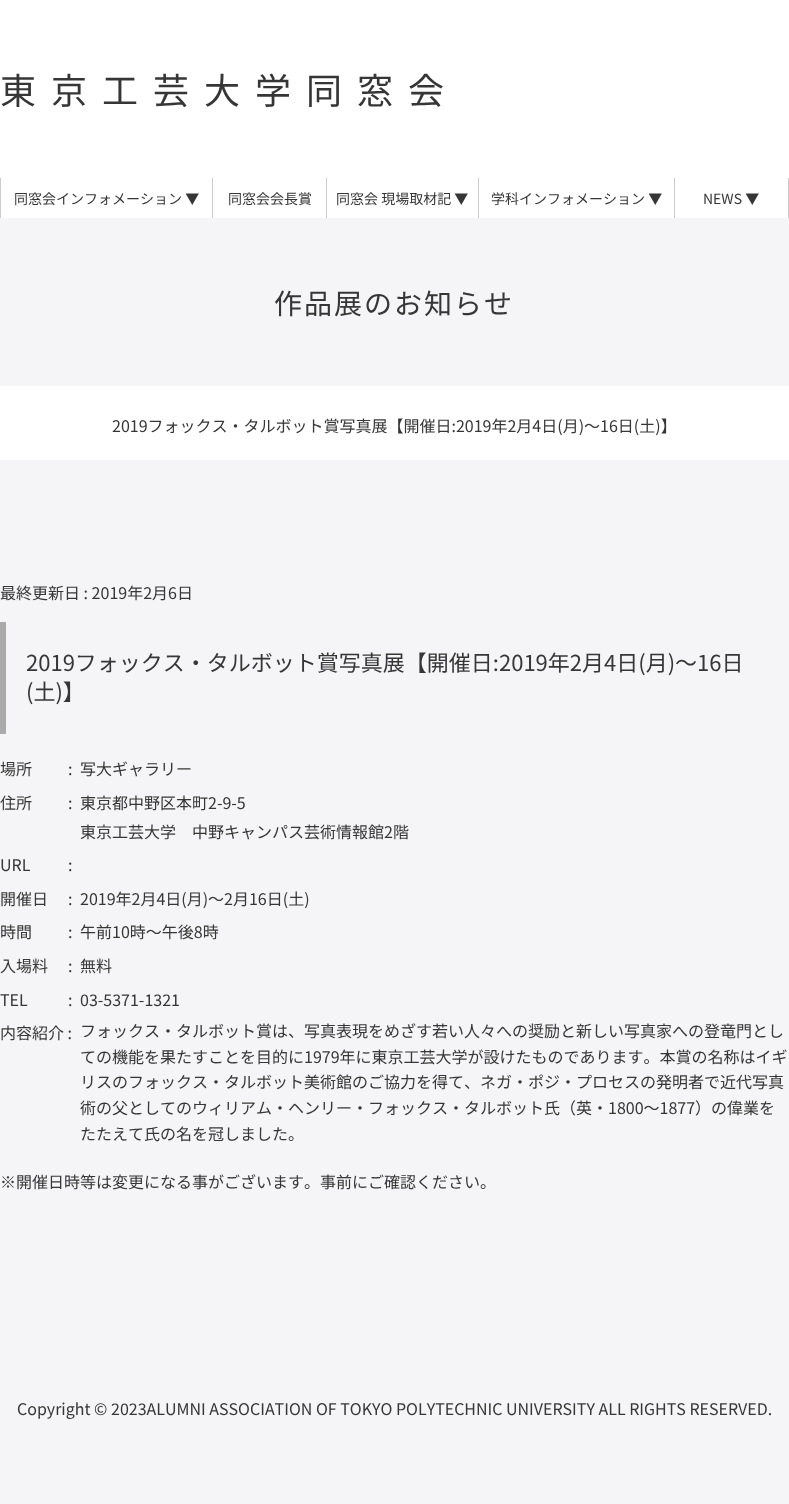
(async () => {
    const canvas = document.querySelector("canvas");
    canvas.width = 789;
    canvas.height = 1504;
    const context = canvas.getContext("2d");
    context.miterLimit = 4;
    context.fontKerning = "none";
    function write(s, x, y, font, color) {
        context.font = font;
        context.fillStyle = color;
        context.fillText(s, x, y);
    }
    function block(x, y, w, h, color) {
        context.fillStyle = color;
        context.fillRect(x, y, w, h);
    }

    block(0, 0, 789, 1504, "rgb(245, 245, 247)");
    block(0, 0, 789, 218, "rgb(255, 255, 255)");
    context.letterSpacing = "15px";
    write("東京工芸大学同窓会", 0, 104, "36px Noto Sans JP", "rgb(54, 54, 54)");
    block(0, 178, 1, 40, "rgb(204, 204, 204)");
    block(212, 178, 1, 40, "rgb(204, 204, 204)");
    context.letterSpacing = "0px";
    write("同窓会インフォメーション ▼", 14, 204, "14px Noto Sans JP", "rgb(54, 54, 54)");
    block(326, 178, 1, 40, "rgb(204, 204, 204)");
    write("同窓会会長賞", 228, 204, "14px Noto Sans JP", "rgb(54, 54, 54)");
    block(478, 178, 1, 40, "rgb(204, 204, 204)");
    write("同窓会 現場取材記 ▼", 336, 204, "14px Noto Sans JP", "rgb(54, 54, 54)");
    block(674, 178, 1, 40, "rgb(204, 204, 204)");
    write("学科インフォメーション ▼", 491, 204, "14px Noto Sans JP", "rgb(54, 54, 54)");
    block(788, 178, 1, 40, "rgb(204, 204, 204)");
    write("NEWS ▼", 703, 204, "14px Noto Sans JP", "rgb(54, 54, 54)");
    context.letterSpacing = "2px";
    write("作品展のお知らせ", 274, 314, "28px Noto Sans JP", "rgb(54, 54, 54)");
    block(0, 386, 789, 74, "rgb(255, 255, 255)");
    context.letterSpacing = "0px";
    write("2019フォックス・タルボット賞写真展【開催日:2019年2月4日(月)～16日(土)】", 112, 432, "16px Noto Sans JP", "rgb(54, 54, 54)");
    write("最終更新日 : 2019年2月6日", 0, 599, "16px Noto Sans JP", "rgb(54, 54, 54)");
    block(0, 622, 6, 112, "rgb(170, 170, 170)");
    write("2019フォックス・タルボット賞写真展【開催日:2019年2月4日(月)～16日", 26, 671, "22px Noto Sans JP", "rgb(54, 54, 54)");
    write("(土)】", 26, 700, "22px Noto Sans JP", "rgb(54, 54, 54)");
    write("場所", 0, 775, "16px Noto Sans JP", "rgb(54, 54, 54)");
    write(":", 68, 775, "16px Noto Sans JP", "rgb(54, 54, 54)");
    write("写大ギャラリー", 80, 775, "16px Noto Sans JP", "rgb(54, 54, 54)");
    write("住所", 0, 809, "16px Noto Sans JP", "rgb(54, 54, 54)");
    write(":", 68, 809, "16px Noto Sans JP", "rgb(54, 54, 54)");
    write("東京都中野区本町2-9-5", 80, 809, "16px Noto Sans JP", "rgb(54, 54, 54)");
    write("東京工芸大学　中野キャンパス芸術情報館2階", 80, 838, "16px Noto Sans JP", "rgb(54, 54, 54)");
    write("URL", 0, 871, "16px Noto Sans JP", "rgb(54, 54, 54)");
    write(":", 68, 871, "16px Noto Sans JP", "rgb(54, 54, 54)");
    write("開催日", 0, 905, "16px Noto Sans JP", "rgb(54, 54, 54)");
    write(":", 68, 905, "16px Noto Sans JP", "rgb(54, 54, 54)");
    write("2019年2月4日(月)～2月16日(土)", 80, 905, "16px Noto Sans JP", "rgb(54, 54, 54)");
    write("時間", 0, 938, "16px Noto Sans JP", "rgb(54, 54, 54)");
    write(":", 68, 938, "16px Noto Sans JP", "rgb(54, 54, 54)");
    write("午前10時～午後8時", 80, 938, "16px Noto Sans JP", "rgb(54, 54, 54)");
    write("入場料", 0, 972, "16px Noto Sans JP", "rgb(54, 54, 54)");
    write(":", 68, 972, "16px Noto Sans JP", "rgb(54, 54, 54)");
    write("無料", 80, 972, "16px Noto Sans JP", "rgb(54, 54, 54)");
    write("TEL", 0, 1006, "16px Noto Sans JP", "rgb(54, 54, 54)");
    write(":", 68, 1006, "16px Noto Sans JP", "rgb(54, 54, 54)");
    write("03-5371-1321", 80, 1006, "16px Noto Sans JP", "rgb(54, 54, 54)");
    write("内容紹介 :", 0, 1039, "16px Noto Sans JP", "rgb(54, 54, 54)");
    write("フォックス・タルボット賞は、写真表現をめざす若い人々への奨励と新しい写真家への登竜門とし", 80, 1037, "16px Noto Sans JP", "rgb(54, 54, 54)");
    write("ての機能を果たすことを目的に1979年に東京工芸大学が設けたものであります。本賞の名称はイギ", 80, 1063, "16px Noto Sans JP", "rgb(54, 54, 54)");
    write("リスのフォックス・タルボット美術館のご協力を得て、ネガ・ポジ・プロセスの発明者で近代写真", 80, 1088, "16px Noto Sans JP", "rgb(54, 54, 54)");
    write("術の父としてのウィリアム・ヘンリー・フォックス・タルボット氏（英・1800～1877）の偉業を", 80, 1114, "16px Noto Sans JP", "rgb(54, 54, 54)");
    write("たたえて氏の名を冠しました。", 80, 1140, "16px Noto Sans JP", "rgb(54, 54, 54)");
    write("※開催日時等は変更になる事がございます。事前にご確認ください。", 0, 1188, "16px Noto Sans JP", "rgb(54, 54, 54)");
    write("Copyright © 2023ALUMNI ASSOCIATION OF TOKYO POLYTECHNIC", 17, 1415, "16px Noto Sans JP", "rgb(54, 54, 54)");
    write("UNIVERSITY ALL RIGHTS RESERVED.", 506, 1415, "16px Noto Sans JP", "rgb(54, 54, 54)");
})();
